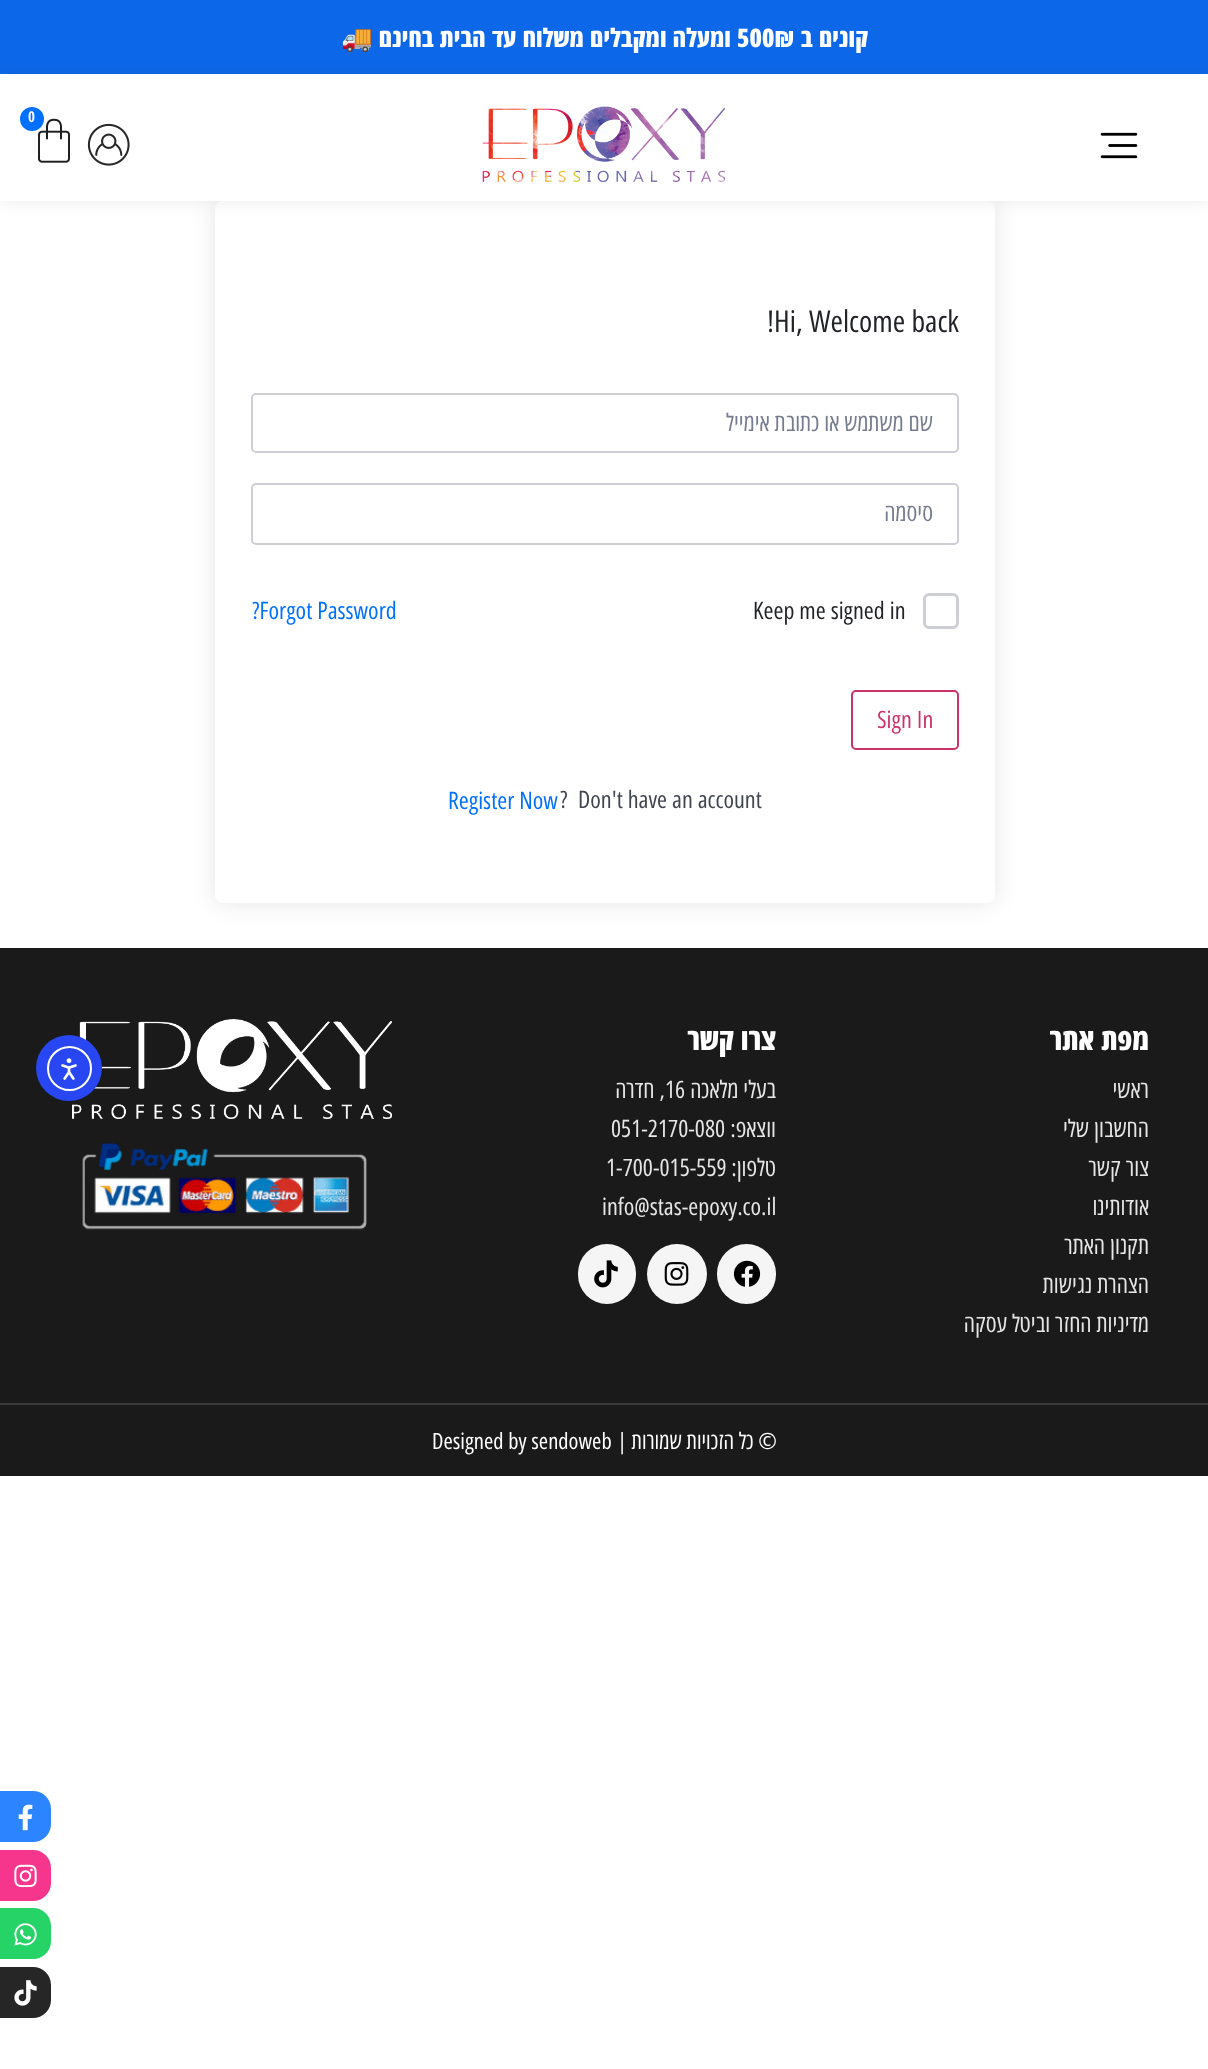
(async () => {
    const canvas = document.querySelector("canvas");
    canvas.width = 1208;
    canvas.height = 2069;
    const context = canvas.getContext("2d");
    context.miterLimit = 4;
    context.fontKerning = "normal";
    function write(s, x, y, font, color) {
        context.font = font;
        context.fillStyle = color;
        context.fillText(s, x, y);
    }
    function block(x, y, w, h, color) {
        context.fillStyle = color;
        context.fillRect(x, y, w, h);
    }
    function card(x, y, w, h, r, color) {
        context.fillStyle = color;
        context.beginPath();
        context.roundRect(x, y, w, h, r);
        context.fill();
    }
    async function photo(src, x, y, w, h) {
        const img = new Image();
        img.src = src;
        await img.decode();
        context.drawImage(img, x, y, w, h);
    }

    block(0, 0, 1208, 2069, "rgb(255, 255, 255)");
    block(0, 0, 1208, 74, "rgb(13, 104, 233)");
    context.letterSpacing = "0.15px";
    context.direction = "rtl";
    write("קונים ב", 868, 47, "800 25.5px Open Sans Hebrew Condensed", "rgb(255, 255, 255)");
    context.direction = "ltr";
    write("500₪", 737, 47, "800 25.5px Open Sans Hebrew Condensed", "rgb(255, 255, 255)");
    context.direction = "rtl";
    write("ומעלה ומקבלים משלוח עד הבית בחינם", 731, 47, "800 25.5px Open Sans Hebrew Condensed", "rgb(255, 255, 255)");
    write("🚚", 373, 47, "bold 25.5px Noto Color Emoji", "rgb(255, 255, 255)");
    context.fillStyle = "rgb(45, 132, 255)";
    context.beginPath();
    context.roundRect(0, 1791, 51, 51, [0, 18, 18, 0]);
    context.fill();
    await photo("media/1.png", 18, 1804, 15, 27);
    context.fillStyle = "rgb(246, 53, 141)";
    context.beginPath();
    context.roundRect(0, 1850, 51, 51, [0, 18, 18, 0]);
    context.fill();
    await photo("media/2.png", 14, 1864, 23, 24);
    context.fillStyle = "rgb(37, 211, 102)";
    context.beginPath();
    context.roundRect(0, 1908, 51, 51, [0, 18, 18, 0]);
    context.fill();
    await photo("media/3.png", 14, 1923, 23, 23);
    context.fillStyle = "rgb(38, 38, 38)";
    context.beginPath();
    context.roundRect(0, 1967, 51, 51, [0, 18, 18, 0]);
    context.fill();
    await photo("media/4.png", 14, 1980, 23, 26);
    context.fillStyle = "rgba(0, 0, 0, 0.08)";
    context.filter = "blur(9px)";
    context.beginPath();
    context.rect(0, 74, 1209, 127);
    context.fill();
    context.filter = "none";
    context.save();
    context.beginPath();
    context.moveTo(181, 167);
    context.lineTo(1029, 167);
    context.lineTo(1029, 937);
    context.lineTo(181, 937);
    context.closePath();
    context.moveTo(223, 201);
    context.lineTo(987, 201);
    context.bezierCurveTo(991.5, 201, 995, 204.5, 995, 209);
    context.lineTo(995, 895);
    context.bezierCurveTo(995, 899.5, 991.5, 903, 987, 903);
    context.lineTo(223, 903);
    context.bezierCurveTo(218.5, 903, 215, 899.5, 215, 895);
    context.lineTo(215, 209);
    context.bezierCurveTo(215, 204.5, 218.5, 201, 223, 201);
    context.closePath();
    context.clip("evenodd");
    context.fillStyle = "rgba(0, 0, 0, 0.1)";
    context.filter = "blur(11px)";
    context.beginPath();
    context.roundRect(215, 201, 780, 702, 8);
    context.fill();
    context.filter = "none";
    context.restore();
    block(0, 74, 1208, 127, "rgb(255, 255, 255)");
    await photo("media/5.png", 482, 106, 243, 76);
    await photo("media/6.png", 38, 118, 32, 45);
    context.fillStyle = "rgb(0, 112, 255)";
    context.beginPath();
    context.arc(32, 119, 12, 0, Math.PI * 2);
    context.fill();
    context.letterSpacing = "0px";
    context.direction = "ltr";
    write("0", 28, 122, "bold 15px Open Sans Hebrew Condensed", "rgb(255, 255, 255)");
    await photo("media/7.png", 87, 123, 43, 43);
    await photo("media/8.png", 1100, 132, 38, 27);
    write("!Hi, Welcome back", 767, 332, "30px Open Sans Hebrew Condensed", "rgb(33, 35, 39)");
    context.beginPath();
    context.roundRect(252, 394, 706, 58, 4);
    context.strokeStyle = "rgb(205, 207, 213)";
    context.lineWidth = 2;
    context.stroke();
    context.direction = "rtl";
    write("שם משתמש או כתובת אימייל", 933, 431, "24px Open Sans Hebrew Condensed", "rgb(117, 124, 142)");
    context.beginPath();
    context.roundRect(252, 484, 706, 60, 4);
    context.stroke();
    write("סיסמה", 933, 521, "24px Open Sans Hebrew Condensed", "rgb(117, 124, 142)");
    context.beginPath();
    context.roundRect(924.5, 594.5, 33, 33, 4.5);
    context.lineWidth = 3;
    context.stroke();
    context.direction = "ltr";
    write("Keep me signed in", 753, 619, "24px Open Sans Hebrew Condensed", "rgb(33, 35, 39)");
    write("?Forgot Password", 252, 619, "24px Open Sans Hebrew Condensed", "rgb(0, 112, 255)");
    context.beginPath();
    context.roundRect(852, 691, 106, 58, 4);
    context.strokeStyle = "rgb(204, 51, 102)";
    context.lineWidth = 2;
    context.stroke();
    write("Sign In", 877, 728, "24px Open Sans Hebrew Condensed", "rgb(204, 51, 102)");
    write("Don't have an account", 578, 808, "24px Open Sans Hebrew Condensed", "rgb(65, 69, 79)");
    write("?", 560, 808, "24px Open Sans Hebrew Condensed", "rgb(65, 69, 79)");
    write("Register Now", 448, 809, "24px Open Sans Hebrew Condensed", "rgb(0, 112, 255)");
    block(0, 948, 1208, 528, "rgb(26, 26, 26)");
    context.direction = "rtl";
    write("מפת אתר", 1149, 1050, "800 30px Open Sans Hebrew Condensed", "rgb(255, 255, 255)");
    write("ראשי", 1149, 1098, "24px Open Sans Hebrew Condensed", "rgb(230, 230, 230)");
    write("החשבון שלי", 1149, 1137, "24px Open Sans Hebrew Condensed", "rgb(230, 230, 230)");
    write("צור קשר", 1149, 1176, "24px Open Sans Hebrew Condensed", "rgb(230, 230, 230)");
    write("אודותינו", 1149, 1215, "24px Open Sans Hebrew Condensed", "rgb(230, 230, 230)");
    write("תקנון האתר", 1149, 1254, "24px Open Sans Hebrew Condensed", "rgb(230, 230, 230)");
    write("הצהרת נגישות", 1149, 1293, "24px Open Sans Hebrew Condensed", "rgb(230, 230, 230)");
    write("מדיניות החזר וביטל עסקה", 1149, 1332, "24px Open Sans Hebrew Condensed", "rgb(230, 230, 230)");
    write("צרו קשר", 776, 1050, "800 30px Open Sans Hebrew Condensed", "rgb(255, 255, 255)");
    write("בעלי מלאכה", 776, 1098, "24px Open Sans Hebrew Condensed", "rgb(230, 230, 230)");
    context.direction = "ltr";
    write("16", 665, 1098, "24px Open Sans Hebrew Condensed", "rgb(230, 230, 230)");
    context.direction = "rtl";
    write(", חדרה", 665, 1098, "24px Open Sans Hebrew Condensed", "rgb(230, 230, 230)");
    write("ווצאפ:", 776, 1137, "24px Open Sans Hebrew Condensed", "rgb(230, 230, 230)");
    context.direction = "ltr";
    write("051-2170-080", 611, 1137, "24px Open Sans Hebrew Condensed", "rgb(230, 230, 230)");
    context.direction = "rtl";
    write("טלפון:", 776, 1176, "24px Open Sans Hebrew Condensed", "rgb(230, 230, 230)");
    context.direction = "ltr";
    write("1-700-015-559", 606, 1176, "24px Open Sans Hebrew Condensed", "rgb(230, 230, 230)");
    write("info@stas-epoxy.co.il", 602, 1215, "24px Open Sans Hebrew Condensed", "rgb(230, 230, 230)");
    card(717, 1244, 59, 60, 29.5, "rgb(245, 245, 245)");
    await photo("media/9.png", 733, 1260, 28, 27);
    context.beginPath();
    context.arc(677, 1274, 30, 0, Math.PI * 2);
    context.fill();
    await photo("media/10.png", 664, 1262, 25, 24);
    card(578, 1244, 58, 60, 29, "rgb(245, 245, 245)");
    await photo("media/11.png", 594, 1260, 24, 28);
    await photo("media/12.png", 72, 1019, 320, 100);
    await photo("media/13.png", 82, 1142, 285, 88);
    block(0, 1403, 1208, 2, "rgb(58, 58, 58)");
    context.direction = "rtl";
    write("© כל הזכויות שמורות |", 777, 1449, "22.5px Open Sans Hebrew Condensed", "rgb(255, 255, 255)");
    context.direction = "ltr";
    write("Designed by sendoweb", 432, 1449, "22.5px Open Sans Hebrew Condensed", "rgb(255, 255, 255)");
    context.fillStyle = "rgb(40, 71, 243)";
    context.beginPath();
    context.arc(69, 1068, 33, 0, Math.PI * 2);
    context.fill();
    context.beginPath();
    context.arc(69.5, 1068.5, 21.5, 0, Math.PI * 2);
    context.strokeStyle = "rgb(255, 255, 255)";
    context.stroke();
    await photo("media/14.png", 61, 1058, 16, 22);
})();
